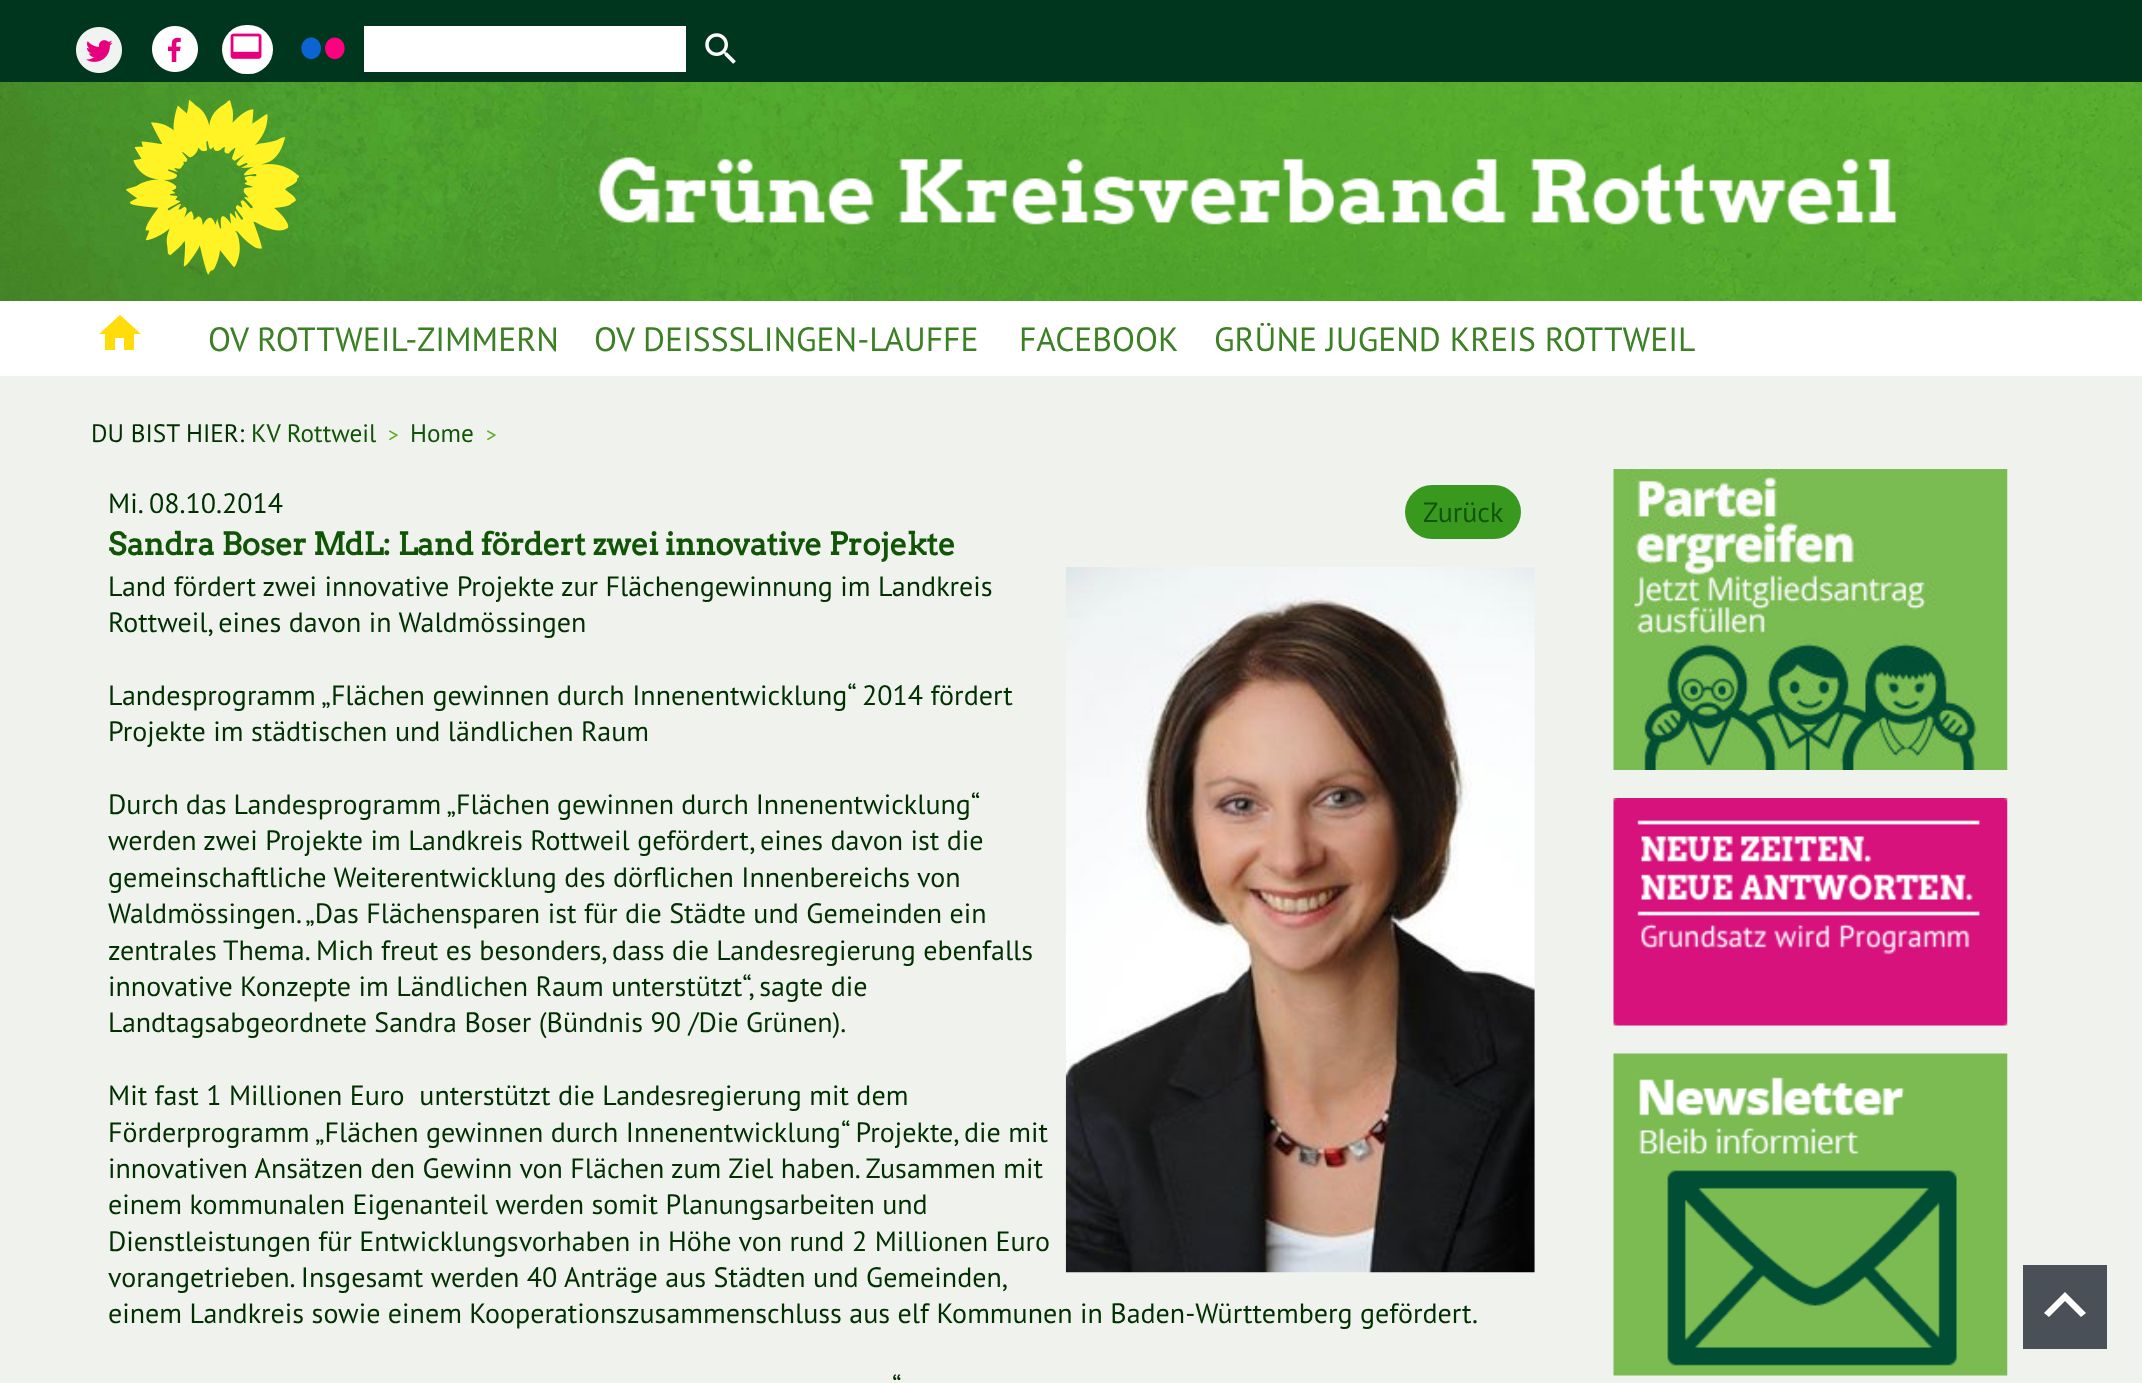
(async () => {
    const canvas = document.querySelector("canvas");
    canvas.width = 2142;
    canvas.height = 1383;
    const context = canvas.getContext("2d");
    context.miterLimit = 4;
    context.fontKerning = "normal";
    function write(s, x, y, font, color) {
        context.font = font;
        context.fillStyle = color;
        context.fillText(s, x, y);
    }
    function block(x, y, w, h, color) {
        context.fillStyle = color;
        context.fillRect(x, y, w, h);
    }
    function card(x, y, w, h, r, color) {
        context.fillStyle = color;
        context.beginPath();
        context.roundRect(x, y, w, h, r);
        context.fill();
    }
    async function photo(src, x, y, w, h) {
        const img = new Image();
        img.src = src;
        await img.decode();
        context.drawImage(img, x, y, w, h);
    }

    block(0, 0, 2142, 1383, "rgb(239, 242, 237)");
    block(0, 0, 2142, 82, "rgb(0, 53, 30)");
    await photo("media/1.png", 76, 27, 46, 46);
    await photo("media/2.png", 152, 26, 46, 46);
    card(222, 25, 51, 49, 24.5, "rgb(255, 255, 255)");
    await photo("media/3.png", 230, 33, 32, 26);
    await photo("media/4.png", 301, 37, 44, 23);
    block(364, 26, 322, 46, "rgb(255, 255, 255)");
    await photo("media/5.png", 705, 33, 31, 31);
    await photo("media/6.png", 0, 82, 2142, 219);
    await photo("media/7.png", 126, 100, 173, 175);
    await photo("media/8.png", 598, 157, 1299, 68);
    block(0, 301, 2142, 75, "rgb(255, 255, 255)");
    context.fillStyle = "rgb(255, 220, 10)";
    context.beginPath();
    context.moveTo(115, 350);
    context.lineTo(105, 350);
    context.lineTo(105, 334);
    context.lineTo(99, 334);
    context.lineTo(120, 315);
    context.lineTo(141, 334);
    context.lineTo(134, 334);
    context.lineTo(134, 350);
    context.lineTo(124, 350);
    context.lineTo(124, 338);
    context.lineTo(115, 338);
    context.closePath();
    context.fill();
    write("OV ROTTWEIL-ZIMMERN", 208, 351, "33.6px PT Sans", "rgb(60, 128, 37)");
    write("OV DEISSSLINGEN-LAUFFE", 594, 351, "33.6px PT Sans", "rgb(60, 128, 37)");
    write("FACEBOOK", 1019, 351, "33.6px PT Sans", "rgb(60, 128, 37)");
    write("GRÜNE JUGEND KREIS ROTTWEIL", 1214, 351, "33.6px PT Sans", "rgb(60, 128, 37)");
    write("DU BIST HIER:", 91, 442, "25.25px PT Sans", "rgb(0, 47, 0)");
    write("KV Rottweil", 251, 442, "25.25px PT Sans", "rgb(18, 84, 7)");
    write(">", 388, 442, "21px PT Sans", "rgb(90, 171, 38)");
    write("Home", 410, 442, "25.25px PT Sans", "rgb(18, 84, 7)");
    write(">", 486, 442, "21px PT Sans", "rgb(90, 171, 38)");
    write("Mi. 08.10.2014", 108, 513, "28px PT Sans", "rgb(0, 47, 0)");
    card(1405, 485, 116, 54, 27, "rgb(57, 153, 31)");
    write("Zurück", 1423, 522, "28px PT Sans", "rgb(18, 84, 7)");
    write("Sandra Boser MdL: Land fördert zwei innovative Projekte", 108, 555, "bold 30.8px Arvo", "rgb(18, 84, 7)");
    await photo("media/9.png", 1065, 567, 470, 706);
    write("Land fördert zwei innovative Projekte zur Flächengewinnung im Landkreis", 108, 596, "28px PT Sans", "rgb(0, 47, 0)");
    write("Rottweil, eines davon in Waldmössingen", 108, 632, "28px PT Sans", "rgb(0, 47, 0)");
    write("Landesprogramm „Flächen gewinnen durch Innenentwicklung“ 2014 fördert", 108, 705, "28px PT Sans", "rgb(0, 47, 0)");
    write("Projekte im städtischen und ländlichen Raum", 108, 741, "28px PT Sans", "rgb(0, 47, 0)");
    context.wordSpacing = "-0.5px";
    write("Durch das Landesprogramm „Flächen gewinnen durch Innenentwicklung“", 108, 814, "28px PT Sans", "rgb(0, 47, 0)");
    context.wordSpacing = "0px";
    write("werden zwei Projekte im Landkreis Rottweil gefördert, eines davon ist die", 108, 850, "28px PT Sans", "rgb(0, 47, 0)");
    write("gemeinschaftliche Weiterentwicklung des dörflichen Innenbereichs von", 108, 887, "28px PT Sans", "rgb(0, 47, 0)");
    write("Waldmössingen. „Das Flächensparen ist für die Städte und Gemeinden ein", 108, 923, "28px PT Sans", "rgb(0, 47, 0)");
    write("zentrales", 108, 960, "28px PT Sans", "rgb(0, 47, 0)");
    write("Thema. Mich freut es besonders, dass die Landesregierung ebenfalls", 223, 960, "28px PT Sans", "rgb(0, 47, 0)");
    write("innovative Konzepte im Ländlichen Raum unterstützt“, sagte die", 108, 996, "28px PT Sans", "rgb(0, 47, 0)");
    write("Landtagsabgeordnete Sandra Boser (Bündnis 90 /Die Grünen).", 108, 1032, "28px PT Sans", "rgb(0, 47, 0)");
    write("Mit fast 1 Millionen Euro  unterstützt die Landesregierung mit dem", 108, 1105, "28px PT Sans", "rgb(0, 47, 0)");
    write("Förderprogramm „Flächen gewinnen durch Innenentwicklung“ Projekte, die mit", 108, 1142, "28px PT Sans", "rgb(0, 47, 0)");
    write("innovativen Ansätzen den Gewinn von Flächen", 108, 1178, "28px PT Sans", "rgb(0, 47, 0)");
    write("zum Ziel haben. Zusammen mit", 671, 1178, "28px PT Sans", "rgb(0, 47, 0)");
    write("einem kommunalen Eigenanteil werden somit Planungsarbeiten und", 108, 1214, "28px PT Sans", "rgb(0, 47, 0)");
    write("Dienstleistungen für Entwicklungsvorhaben in Höhe von rund 2 Millionen Euro", 108, 1251, "28px PT Sans", "rgb(0, 47, 0)");
    write("vorangetrieben. Insgesamt werden 40 Anträge aus Städten und Gemeinden,", 108, 1287, "28px PT Sans", "rgb(0, 47, 0)");
    write("einem Landkreis sowie einem Kooperationszusammenschluss aus elf Kommunen in Baden-Württemberg gefördert.", 108, 1323, "28px PT Sans", "rgb(0, 47, 0)");
    write("“", 892, 1396, "28px PT Sans", "rgb(0, 47, 0)");
    await photo("media/10.png", 1613, 469, 395, 301);
    await photo("media/11.png", 1613, 798, 395, 228);
    await photo("media/12.png", 1613, 1053, 395, 323);
    block(2023, 1265, 84, 84, "rgb(73, 80, 87)");
    context.fillStyle = "rgb(255, 255, 255)";
    context.beginPath();
    context.moveTo(2065, 1292);
    context.lineTo(2086, 1313);
    context.lineTo(2081, 1317);
    context.lineTo(2065, 1301);
    context.lineTo(2049, 1317);
    context.lineTo(2044, 1313);
    context.closePath();
    context.fill();
})();
